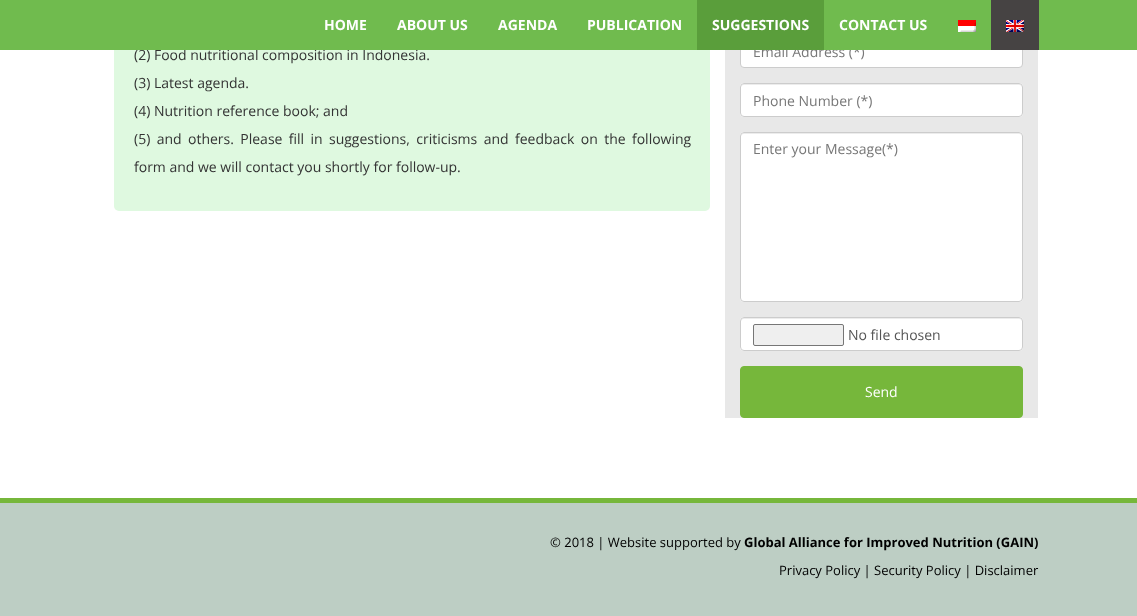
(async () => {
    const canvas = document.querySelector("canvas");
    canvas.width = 1137;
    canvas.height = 616;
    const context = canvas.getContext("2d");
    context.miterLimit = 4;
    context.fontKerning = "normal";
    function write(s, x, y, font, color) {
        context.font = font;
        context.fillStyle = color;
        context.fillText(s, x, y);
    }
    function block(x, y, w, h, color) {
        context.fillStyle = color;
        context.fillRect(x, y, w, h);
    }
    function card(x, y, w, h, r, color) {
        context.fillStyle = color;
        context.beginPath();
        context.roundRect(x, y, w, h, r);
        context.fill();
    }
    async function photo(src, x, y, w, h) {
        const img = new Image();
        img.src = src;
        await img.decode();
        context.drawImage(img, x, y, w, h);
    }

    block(0, 0, 1137, 616, "rgb(255, 255, 255)");
    card(114, -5, 596, 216, 5, "rgb(223, 249, 224)");
    write("(2) Food nutritional composition in Indonesia.", 134, 60, "14px Open Sans", "rgb(51, 51, 51)");
    block(725, 50, 313, 368, "rgb(232, 232, 232)");
    context.fillStyle = "rgb(255, 255, 255)";
    context.beginPath();
    context.roundRect(740.5, 34.5, 282, 33, 3.5);
    context.fill();
    context.strokeStyle = "rgb(204, 204, 204)";
    context.stroke();
    write("Email Address (*)", 753, 57, "14px Open Sans", "rgb(119, 119, 119)");
    block(0, 0, 1137, 50, "rgb(112, 187, 78)");
    write("HOME", 324, 30, "bold 14px Open Sans", "rgb(255, 255, 255)");
    write("ABOUT US", 397, 30, "bold 14px Open Sans", "rgb(255, 255, 255)");
    write("AGENDA", 498, 30, "bold 14px Open Sans", "rgb(255, 255, 255)");
    write("PUBLICATION", 587, 30, "bold 14px Open Sans", "rgb(255, 255, 255)");
    block(697, 0, 127, 50, "rgb(90, 158, 59)");
    write("SUGGESTIONS", 712, 30, "bold 14px Open Sans", "rgb(255, 255, 255)");
    write("CONTACT US", 839, 30, "bold 14px Open Sans", "rgb(255, 255, 255)");
    await photo("media/1.png", 958, 20, 18, 12);
    block(991, 0, 48, 50, "rgb(70, 67, 67)");
    await photo("media/2.png", 1006, 20, 18, 12);
    write("(3) Latest agenda.", 134, 88, "14px Open Sans", "rgb(51, 51, 51)");
    write("(4) Nutrition reference book; and", 134, 116, "14px Open Sans", "rgb(51, 51, 51)");
    context.wordSpacing = "2.75px";
    write("(5) and others. Please fill in suggestions, criticisms and feedback on the following", 134, 144, "14px Open Sans", "rgb(51, 51, 51)");
    context.wordSpacing = "0px";
    write("form and we will contact you shortly for follow-up.", 134, 172, "14px Open Sans", "rgb(51, 51, 51)");
    card(740, 83, 283, 34, 4, "rgb(255, 255, 255)");
    context.fillStyle = "rgb(236, 236, 236)";
    context.beginPath();
    context.moveTo(744, 85);
    context.lineTo(1019, 85);
    context.bezierCurveTo(1021, 85, 1022, 86, 1022, 88);
    context.lineTo(1022, 87);
    context.bezierCurveTo(1022, 85, 1021, 84, 1019, 84);
    context.lineTo(744, 84);
    context.bezierCurveTo(742, 84, 741, 85, 741, 87);
    context.lineTo(741, 88);
    context.bezierCurveTo(741, 86, 742, 85, 744, 85);
    context.closePath();
    context.fill();
    context.beginPath();
    context.roundRect(740.5, 83.5, 282, 33, 3.5);
    context.stroke();
    write("Phone Number (*)", 753, 106, "14px Open Sans", "rgb(119, 119, 119)");
    card(740, 132, 283, 170, 4, "rgb(255, 255, 255)");
    context.fillStyle = "rgb(236, 236, 236)";
    context.beginPath();
    context.moveTo(744, 134);
    context.lineTo(1019, 134);
    context.bezierCurveTo(1021, 134, 1022, 135, 1022, 137);
    context.lineTo(1022, 136);
    context.bezierCurveTo(1022, 134, 1021, 133, 1019, 133);
    context.lineTo(744, 133);
    context.bezierCurveTo(742, 133, 741, 134, 741, 136);
    context.lineTo(741, 137);
    context.bezierCurveTo(741, 135, 742, 134, 744, 134);
    context.closePath();
    context.fill();
    context.beginPath();
    context.roundRect(740.5, 132.5, 282, 169, 3.5);
    context.stroke();
    write("Enter your Message(*)", 753, 154, "14px Open Sans", "rgb(119, 119, 119)");
    card(740, 317, 283, 34, 4, "rgb(255, 255, 255)");
    context.fillStyle = "rgb(236, 236, 236)";
    context.beginPath();
    context.moveTo(744, 319);
    context.lineTo(1019, 319);
    context.bezierCurveTo(1021, 319, 1022, 320, 1022, 322);
    context.lineTo(1022, 321);
    context.bezierCurveTo(1022, 319, 1021, 318, 1019, 318);
    context.lineTo(744, 318);
    context.bezierCurveTo(742, 318, 741, 319, 741, 321);
    context.lineTo(741, 322);
    context.bezierCurveTo(741, 320, 742, 319, 744, 319);
    context.closePath();
    context.fill();
    context.beginPath();
    context.roundRect(740.5, 317.5, 282, 33, 3.5);
    context.stroke();
    context.fillStyle = "rgb(239, 239, 239)";
    context.beginPath();
    context.roundRect(753.5, 324.5, 90, 21, 1.5);
    context.fill();
    context.strokeStyle = "rgb(118, 118, 118)";
    context.stroke();
    write("No file chosen", 848, 340, "14px Open Sans", "rgb(85, 85, 85)");
    context.fillStyle = "rgb(118, 183, 59)";
    context.beginPath();
    context.roundRect(740.5, 366.5, 282, 51, 3.5);
    context.fill();
    context.strokeStyle = "rgb(118, 183, 59)";
    context.stroke();
    write("Send", 865, 397, "14px Open Sans", "rgb(255, 255, 255)");
    block(0, 503, 1137, 113, "rgb(189, 206, 196)");
    block(0, 498, 1137, 5, "rgb(118, 183, 59)");
    write("© 2018 | Website supported by", 550, 547, "13px Open Sans", "rgb(0, 0, 0)");
    write("Global Alliance for Improved Nutrition (GAIN)", 744, 547, "bold 13px Open Sans", "rgb(0, 0, 0)");
    write("Privacy Policy | Security Policy | Disclaimer", 779, 575, "13px Open Sans", "rgb(0, 0, 0)");
})();
